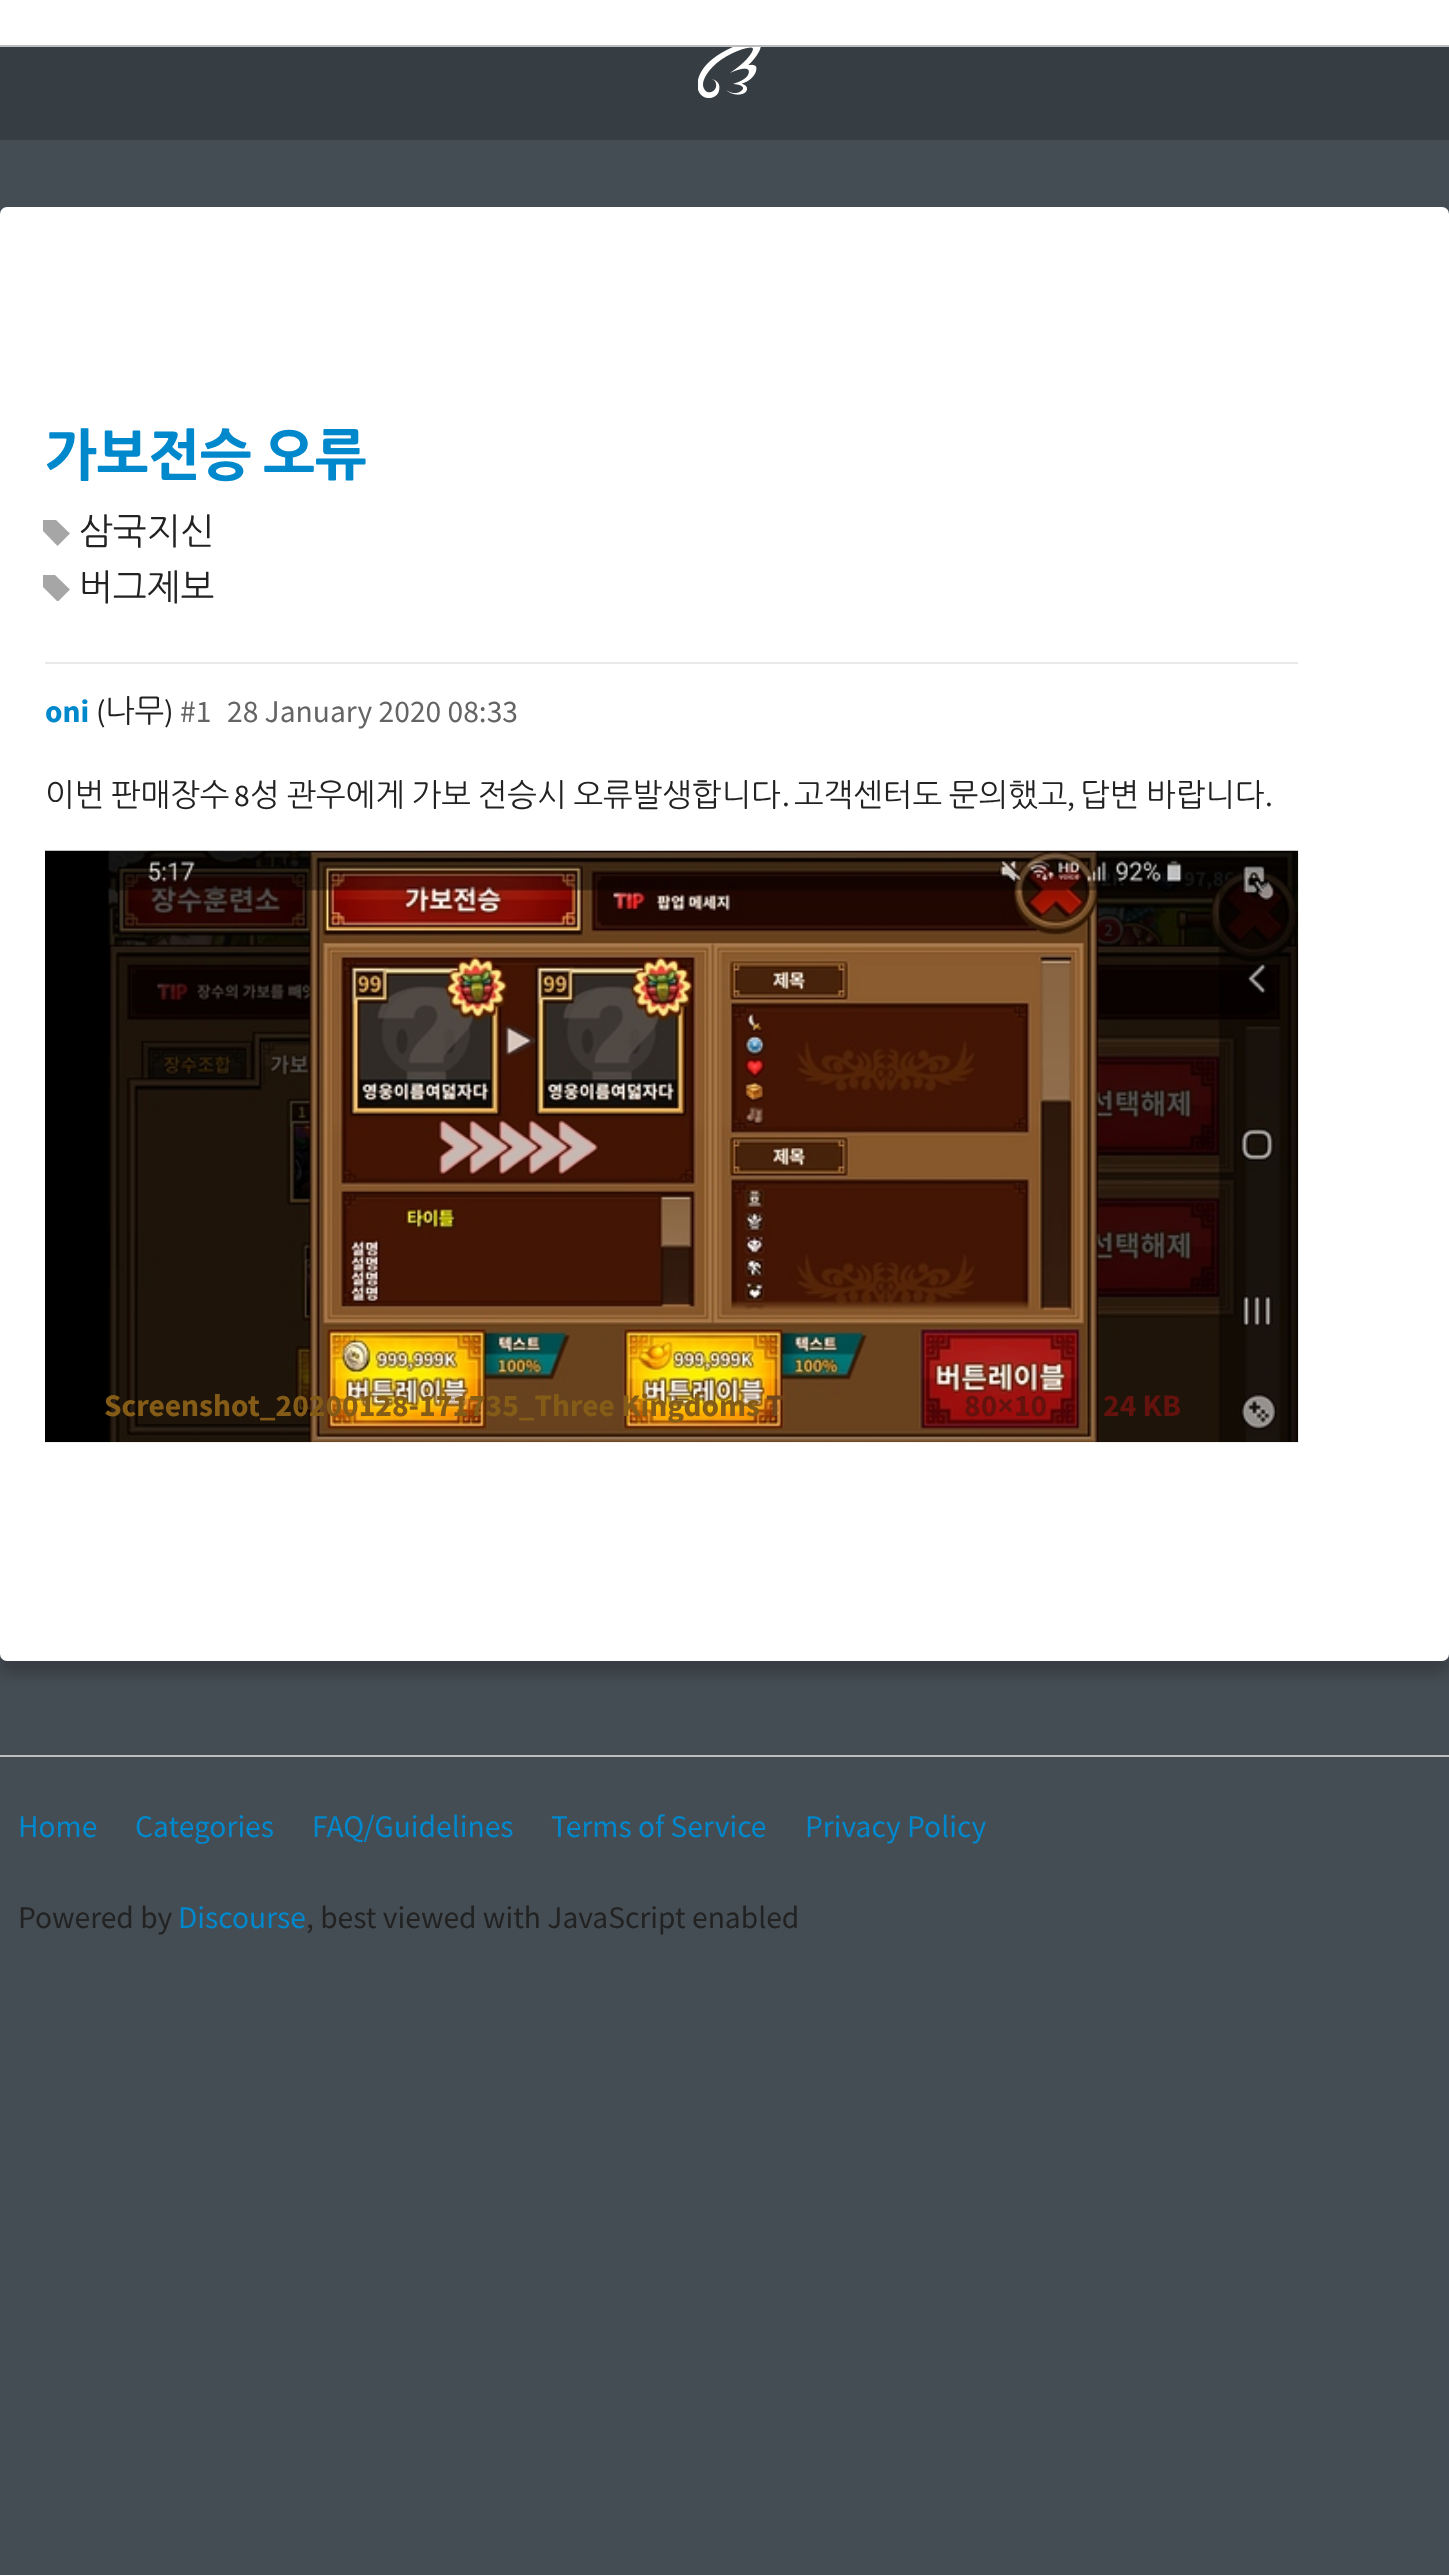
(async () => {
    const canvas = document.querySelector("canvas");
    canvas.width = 1449;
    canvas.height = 2575;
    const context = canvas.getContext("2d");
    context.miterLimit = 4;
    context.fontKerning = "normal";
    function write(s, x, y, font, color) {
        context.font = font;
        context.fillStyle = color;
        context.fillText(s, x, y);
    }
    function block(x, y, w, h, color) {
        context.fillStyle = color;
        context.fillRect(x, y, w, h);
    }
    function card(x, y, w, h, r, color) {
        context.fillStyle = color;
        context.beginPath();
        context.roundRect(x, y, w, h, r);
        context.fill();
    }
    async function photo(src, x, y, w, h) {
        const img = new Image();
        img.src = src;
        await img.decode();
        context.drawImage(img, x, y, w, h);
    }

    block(0, 0, 1449, 2575, "rgb(69, 77, 84)");
    block(0, 0, 1449, 45, "rgb(255, 255, 255)");
    block(0, 45, 1449, 2, "rgb(189, 189, 189)");
    block(0, 47, 1449, 93, "rgb(55, 62, 67)");
    await photo("media/1.png", 698, 47, 63, 52);
    context.fillStyle = "rgba(12, 13, 14, 0.25)";
    context.filter = "blur(7px)";
    context.beginPath();
    context.roundRect(0, 221, 1449, 1453, 7);
    context.fill();
    context.filter = "none";
    card(0, 207, 1449, 1454, 7, "rgb(255, 255, 255)");
    context.wordSpacing = "-4px";
    write("가보전승 오류", 45, 475, "800 55px NanumGothic", "rgb(0, 136, 204)");
    context.fillStyle = "rgb(166, 166, 166)";
    context.beginPath();
    context.moveTo(43, 520);
    context.lineTo(56, 520);
    context.lineTo(70, 533.5);
    context.lineTo(57.5, 546);
    context.lineTo(43, 531);
    context.closePath();
    context.fill();
    context.wordSpacing = "0px";
    write("삼국지신", 79, 544, "36px NanumGothic", "rgb(34, 34, 34)");
    context.fillStyle = "rgb(166, 166, 166)";
    context.beginPath();
    context.moveTo(55, 575);
    context.lineTo(70, 589.5);
    context.lineTo(58.5, 601);
    context.lineTo(57, 601);
    context.lineTo(43, 587);
    context.lineTo(43, 575);
    context.closePath();
    context.fill();
    write("버그제보", 79, 600, "36px NanumGothic", "rgb(34, 34, 34)");
    block(45, 662, 1253, 2, "rgb(233, 233, 233)");
    write("oni", 45, 722, "bold 31.5px Source Sans Pro", "rgb(0, 136, 204)");
    write("(", 96, 722, "31.5px Source Sans Pro", "rgb(34, 34, 34)");
    write("나무", 105, 722, "31.5px NanumGothic", "rgb(34, 34, 34)");
    write(")", 164, 722, "31.5px Source Sans Pro", "rgb(34, 34, 34)");
    write("#1", 180, 722, "31.5px Source Sans Pro", "rgb(100, 100, 100)");
    write("28 January 2020 08:33", 227, 722, "31.5px Source Sans Pro", "rgb(100, 100, 100)");
    context.wordSpacing = "-2px";
    write("이번 판매장수", 45, 806, "31.5px NanumGothic", "rgb(34, 34, 34)");
    context.wordSpacing = "0px";
    write("8", 234, 806, "31.5px Source Sans Pro", "rgb(34, 34, 34)");
    context.wordSpacing = "-2px";
    write("성 관우에게 가보 전승시 오류발생합니다", 250, 806, "31.5px NanumGothic", "rgb(34, 34, 34)");
    context.wordSpacing = "0px";
    write(".", 782, 806, "31.5px Source Sans Pro", "rgb(34, 34, 34)");
    context.wordSpacing = "-2px";
    write("고객센터도 문의했고", 794, 806, "31.5px NanumGothic", "rgb(34, 34, 34)");
    context.wordSpacing = "0px";
    write(",", 1067, 806, "31.5px Source Sans Pro", "rgb(34, 34, 34)");
    context.wordSpacing = "-2px";
    write("답변 바랍니다", 1080, 806, "31.5px NanumGothic", "rgb(34, 34, 34)");
    context.wordSpacing = "0px";
    write(".", 1265, 806, "31.5px Source Sans Pro", "rgb(34, 34, 34)");
    await photo("media/2.png", 45, 850, 1254, 593);
    write("Screenshot_20200128-171735_Three Kingdoms", 104, 1416, "bold 31.5px Source Sans Pro", "rgb(132, 92, 23)");
    write("T", 766, 1416, "bold 31.5px Source Sans Pro", "rgb(113, 70, 28)");
    write("80×10", 964, 1416, "bold 31.5px Source Sans Pro", "rgb(100, 18, 13)");
    write("24 KB", 1103, 1416, "bold 31.5px Source Sans Pro", "rgb(100, 18, 13)");
    block(0, 1755, 1449, 2, "rgb(189, 189, 189)");
    write("Home", 18, 1837, "31.5px Source Sans Pro", "rgb(0, 136, 204)");
    write("Categories", 135, 1837, "31.5px Source Sans Pro", "rgb(0, 136, 204)");
    write("FAQ/Guidelines", 312, 1837, "31.5px Source Sans Pro", "rgb(0, 136, 204)");
    write("Terms of Service", 551, 1837, "31.5px Source Sans Pro", "rgb(0, 136, 204)");
    write("Privacy Policy", 805, 1837, "31.5px Source Sans Pro", "rgb(0, 136, 204)");
    write("Powered by", 18, 1928, "31.5px Source Sans Pro", "rgb(34, 34, 34)");
    write("Discourse", 178, 1928, "31.5px Source Sans Pro", "rgb(0, 136, 204)");
    write(", best viewed with JavaScript enabled", 306, 1928, "31.5px Source Sans Pro", "rgb(34, 34, 34)");
})();
